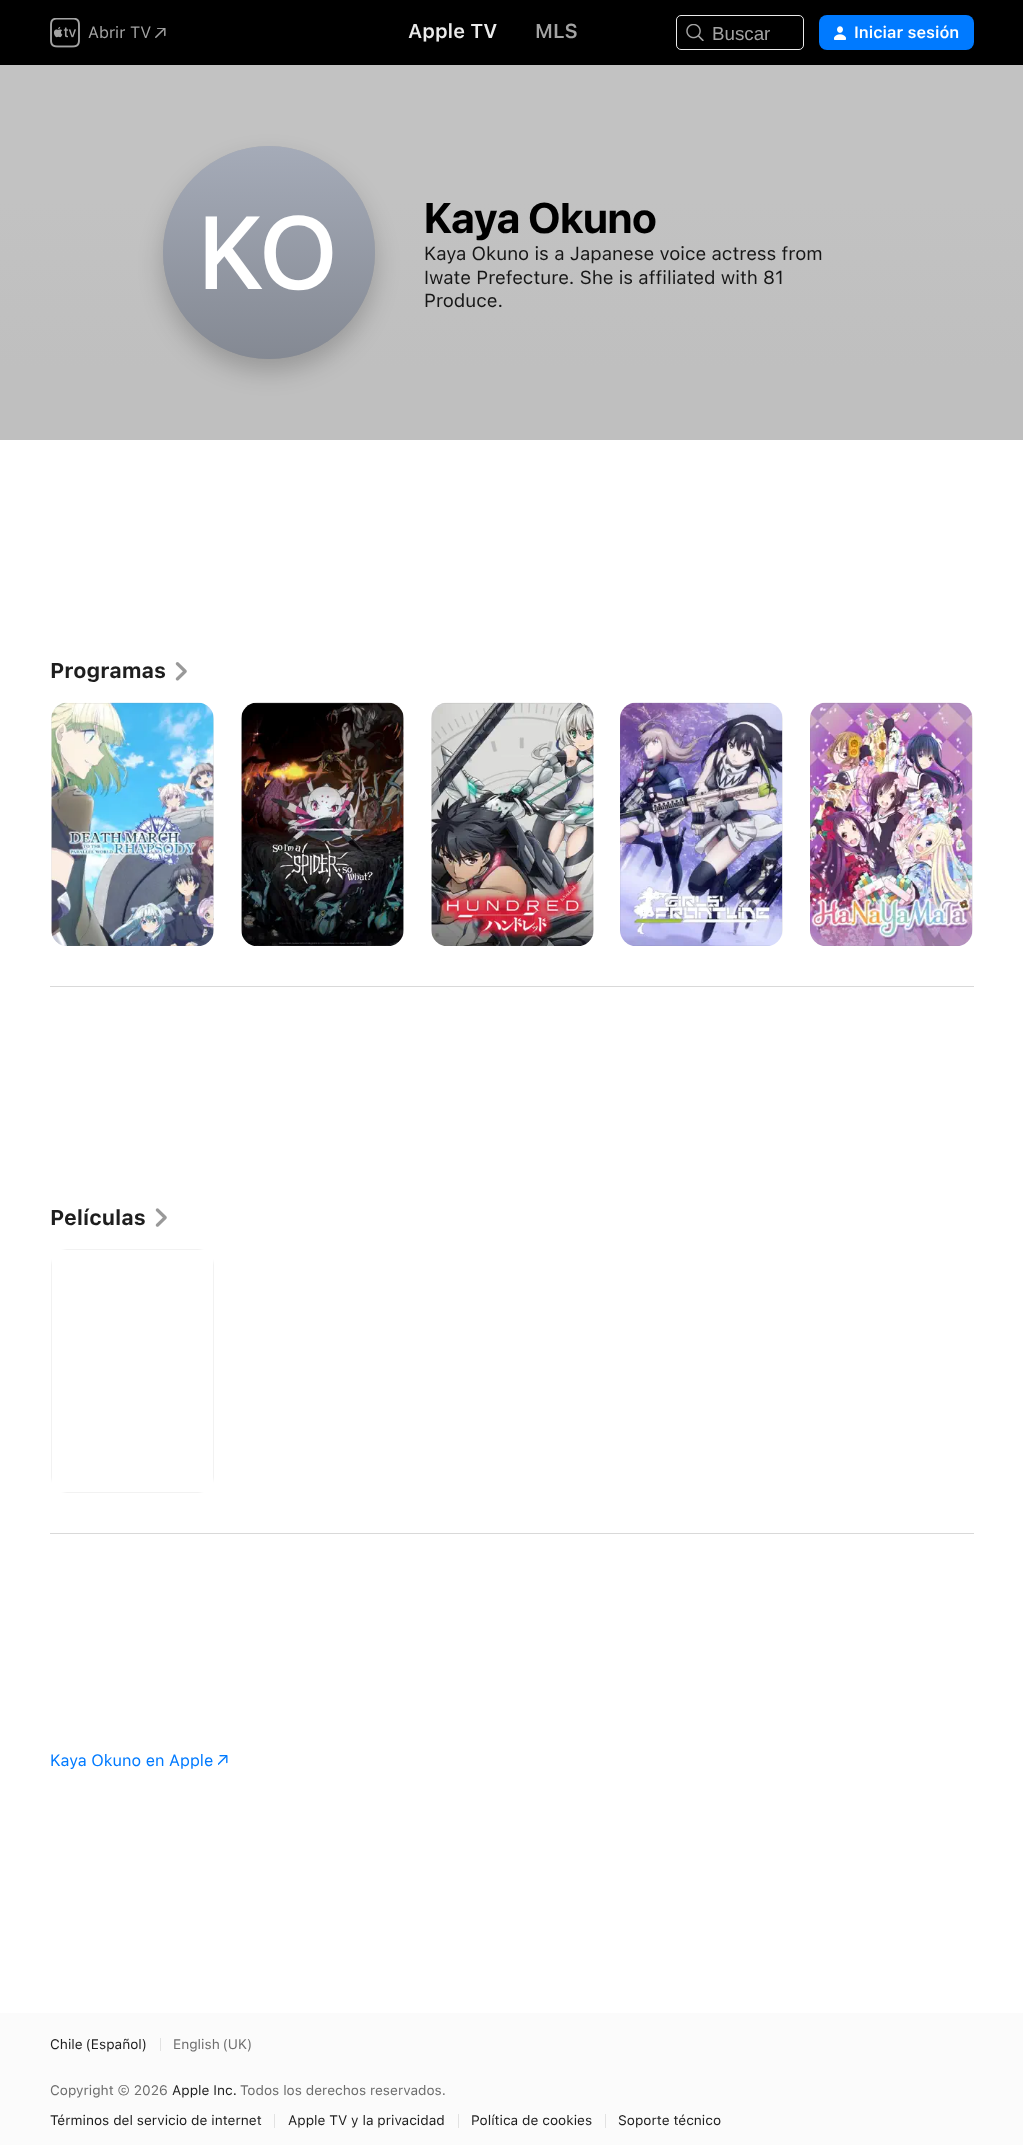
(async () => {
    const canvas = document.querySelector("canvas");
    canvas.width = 1023;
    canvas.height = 2145;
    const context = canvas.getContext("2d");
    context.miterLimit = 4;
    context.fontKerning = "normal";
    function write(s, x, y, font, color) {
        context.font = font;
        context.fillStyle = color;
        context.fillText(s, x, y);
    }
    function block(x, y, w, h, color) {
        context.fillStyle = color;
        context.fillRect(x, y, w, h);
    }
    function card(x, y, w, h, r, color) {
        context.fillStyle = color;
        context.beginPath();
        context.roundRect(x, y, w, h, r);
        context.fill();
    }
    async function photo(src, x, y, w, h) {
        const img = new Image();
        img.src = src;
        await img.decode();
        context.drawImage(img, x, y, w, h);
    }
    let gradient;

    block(0, 0, 1023, 2145, "rgb(255, 255, 255)");
    block(0, 0, 1023, 65, "rgb(0, 0, 0)");
    await photo("media/1.png", 50, 18, 30, 30);
    write("Abrir TV", 88, 38, "16.25px SF", "rgb(163, 163, 163)");
    await photo("media/2.png", 155, 28, 11, 10);
    write("Apple TV", 408, 38, "600 20px SF", "rgb(235, 235, 235)");
    write("MLS", 535, 38, "600 20px SF", "rgb(163, 163, 163)");
    context.beginPath();
    context.roundRect(676.5, 15.5, 127, 34, 4.5);
    context.strokeStyle = "rgb(235, 235, 235)";
    context.stroke();
    await photo("media/3.png", 686, 24, 18, 17);
    write("Buscar", 712, 40, "18.75px Liberation Sans", "rgb(163, 163, 163)");
    card(819, 15, 155, 35, 8, "rgb(0, 122, 255)");
    await photo("media/4.png", 834, 26, 12, 14);
    write("Iniciar sesión", 854, 38, "600 16.25px SF", "rgb(255, 255, 255)");
    block(0, 65, 1023, 138, "rgb(194, 194, 194)");
    gradient = context.createLinearGradient(512, 202, 512, 440);
    gradient.addColorStop(0, "rgb(194, 194, 194)");
    gradient.addColorStop(0.7, "rgb(191, 191, 191)");
    context.fillStyle = gradient;
    context.fillRect(0, 203, 1023, 237);
    context.fillStyle = "rgba(0, 0, 0, 0.2)";
    context.filter = "blur(12.5px)";
    context.beginPath();
    context.roundRect(163, 159, 212, 212, 106);
    context.fill();
    context.filter = "none";
    context.beginPath();
    context.roundRect(163.5, 146.5, 211, 212, 105.5);
    context.strokeStyle = "rgba(0, 0, 0, 0.08)";
    context.stroke();
    gradient = context.createLinearGradient(269, 146, 269, 359);
    gradient.addColorStop(0, "rgb(165, 171, 184)");
    gradient.addColorStop(1, "rgb(132, 137, 147)");
    context.fillStyle = gradient;
    context.beginPath();
    context.roundRect(163, 146, 212, 213, 106);
    context.fill();
    context.letterSpacing = "0.5px";
    write("K‌O", 199, 289, "500 103px SF", "rgb(255, 255, 255)");
    context.letterSpacing = "0px";
    write("Kaya Okuno", 424, 233, "bold 42.5px 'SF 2'", "rgb(0, 0, 0)");
    write("Kaya Okuno is a Japanese voice actress from", 424, 260, "18.75px SF", "rgb(23, 23, 23)");
    write("Iwate Prefecture. She is affiliated with 81", 424, 284, "18.75px SF", "rgb(23, 23, 23)");
    write("Produce.", 424, 307, "18.75px SF", "rgb(23, 23, 23)");
    write("Programas", 50, 678, "bold 21.25px SF", "rgb(30, 30, 30)");
    await photo("media/5.png", 175, 662, 12, 19);
    await photo("media/6.png", 51, 702, 163, 244);
    context.fillStyle = "rgba(128, 128, 128, 0.1)";
    context.beginPath();
    context.moveTo(51, 719);
    context.lineTo(51, 930);
    context.lineTo(52, 936);
    context.lineTo(52, 713);
    context.closePath();
    context.moveTo(67, 703);
    context.lineTo(61, 704);
    context.lineTo(204, 704);
    context.lineTo(198, 703);
    context.closePath();
    context.moveTo(214, 719);
    context.lineTo(213, 713);
    context.lineTo(213, 936);
    context.lineTo(214, 930);
    context.closePath();
    context.moveTo(198, 946);
    context.lineTo(204, 945);
    context.lineTo(61, 945);
    context.lineTo(67, 946);
    context.closePath();
    context.fill("evenodd");
    await photo("media/7.png", 241, 702, 163, 244);
    context.beginPath();
    context.moveTo(241, 719);
    context.lineTo(241, 930);
    context.lineTo(242, 936);
    context.lineTo(242, 713);
    context.closePath();
    context.moveTo(257, 703);
    context.lineTo(251, 704);
    context.lineTo(394, 704);
    context.lineTo(388, 703);
    context.closePath();
    context.moveTo(404, 719);
    context.lineTo(403, 713);
    context.lineTo(403, 936);
    context.lineTo(404, 930);
    context.closePath();
    context.moveTo(388, 946);
    context.lineTo(394, 945);
    context.lineTo(251, 945);
    context.lineTo(257, 946);
    context.closePath();
    context.fill("evenodd");
    await photo("media/8.png", 431, 702, 163, 244);
    context.beginPath();
    context.moveTo(431, 719);
    context.lineTo(431, 930);
    context.lineTo(432, 936);
    context.lineTo(432, 713);
    context.closePath();
    context.moveTo(447, 703);
    context.lineTo(441, 704);
    context.lineTo(583, 704);
    context.lineTo(577, 703);
    context.closePath();
    context.moveTo(593, 719);
    context.lineTo(592, 713);
    context.lineTo(592, 936);
    context.lineTo(593, 930);
    context.closePath();
    context.moveTo(577, 946);
    context.lineTo(583, 945);
    context.lineTo(441, 945);
    context.lineTo(447, 946);
    context.closePath();
    context.fill("evenodd");
    await photo("media/9.png", 620, 702, 163, 244);
    context.beginPath();
    context.moveTo(620, 719);
    context.lineTo(620, 930);
    context.lineTo(621, 936);
    context.lineTo(621, 713);
    context.closePath();
    context.moveTo(636, 703);
    context.lineTo(630, 704);
    context.lineTo(773, 704);
    context.lineTo(767, 703);
    context.closePath();
    context.moveTo(783, 719);
    context.lineTo(782, 713);
    context.lineTo(782, 936);
    context.lineTo(783, 930);
    context.closePath();
    context.moveTo(767, 946);
    context.lineTo(773, 945);
    context.lineTo(630, 945);
    context.lineTo(636, 946);
    context.closePath();
    context.fill("evenodd");
    await photo("media/10.png", 810, 702, 163, 244);
    context.beginPath();
    context.moveTo(810, 719);
    context.lineTo(810, 930);
    context.lineTo(811, 936);
    context.lineTo(811, 713);
    context.closePath();
    context.moveTo(826, 703);
    context.lineTo(820, 704);
    context.lineTo(963, 704);
    context.lineTo(957, 703);
    context.closePath();
    context.moveTo(973, 719);
    context.lineTo(972, 713);
    context.lineTo(972, 936);
    context.lineTo(973, 930);
    context.closePath();
    context.moveTo(957, 946);
    context.lineTo(963, 945);
    context.lineTo(820, 945);
    context.lineTo(826, 946);
    context.closePath();
    context.fill("evenodd");
    block(50, 986, 924, 1, "rgb(217, 217, 217)");
    write("Películas", 50, 1225, "bold 21.25px SF", "rgb(30, 30, 30)");
    await photo("media/11.png", 155, 1208, 12, 19);
    context.fillStyle = "rgb(242, 242, 242)";
    context.beginPath();
    context.moveTo(51, 1265);
    context.lineTo(51, 1477);
    context.lineTo(52, 1483);
    context.lineTo(52, 1259);
    context.closePath();
    context.moveTo(67, 1249);
    context.lineTo(61, 1250);
    context.lineTo(204, 1250);
    context.lineTo(198, 1249);
    context.closePath();
    context.moveTo(214, 1265);
    context.lineTo(213, 1259);
    context.lineTo(213, 1483);
    context.lineTo(214, 1477);
    context.closePath();
    context.moveTo(198, 1493);
    context.lineTo(204, 1492);
    context.lineTo(61, 1492);
    context.lineTo(67, 1493);
    context.closePath();
    context.fill("evenodd");
    block(50, 1533, 924, 1, "rgb(217, 217, 217)");
    write("Kaya Okuno en Apple", 50, 1766, "16.25px SF", "rgb(0, 122, 255)");
    await photo("media/12.png", 218, 1755, 10, 10);
    block(0, 2013, 1023, 132, "rgb(251, 251, 251)");
    context.wordSpacing = "-1px";
    write("Chile (Español)", 50, 2049, "13.75px SF", "rgb(30, 30, 30)");
    block(160, 2038, 1, 13, "rgb(226, 226, 226)");
    write("English (UK)", 173, 2049, "13.75px SF", "rgb(110, 110, 110)");
    context.wordSpacing = "0px";
    write("Copyright © 2026", 50, 2095, "13.75px SF", "rgb(110, 110, 110)");
    write("Apple Inc.", 172, 2095, "13.75px SF", "rgb(30, 30, 30)");
    write("Todos los derechos reservados.", 240, 2095, "13.75px SF", "rgb(110, 110, 110)");
    write("Términos del servicio de internet", 50, 2125, "13.75px SF", "rgb(30, 30, 30)");
    block(274, 2114, 1, 14, "rgb(226, 226, 226)");
    write("Apple TV y la privacidad", 288, 2125, "13.75px SF", "rgb(30, 30, 30)");
    block(458, 2114, 1, 14, "rgb(226, 226, 226)");
    write("Política de cookies", 471, 2125, "13.75px SF", "rgb(30, 30, 30)");
    block(605, 2114, 1, 14, "rgb(226, 226, 226)");
    write("Soporte técnico", 618, 2125, "13.75px SF", "rgb(30, 30, 30)");
})();
